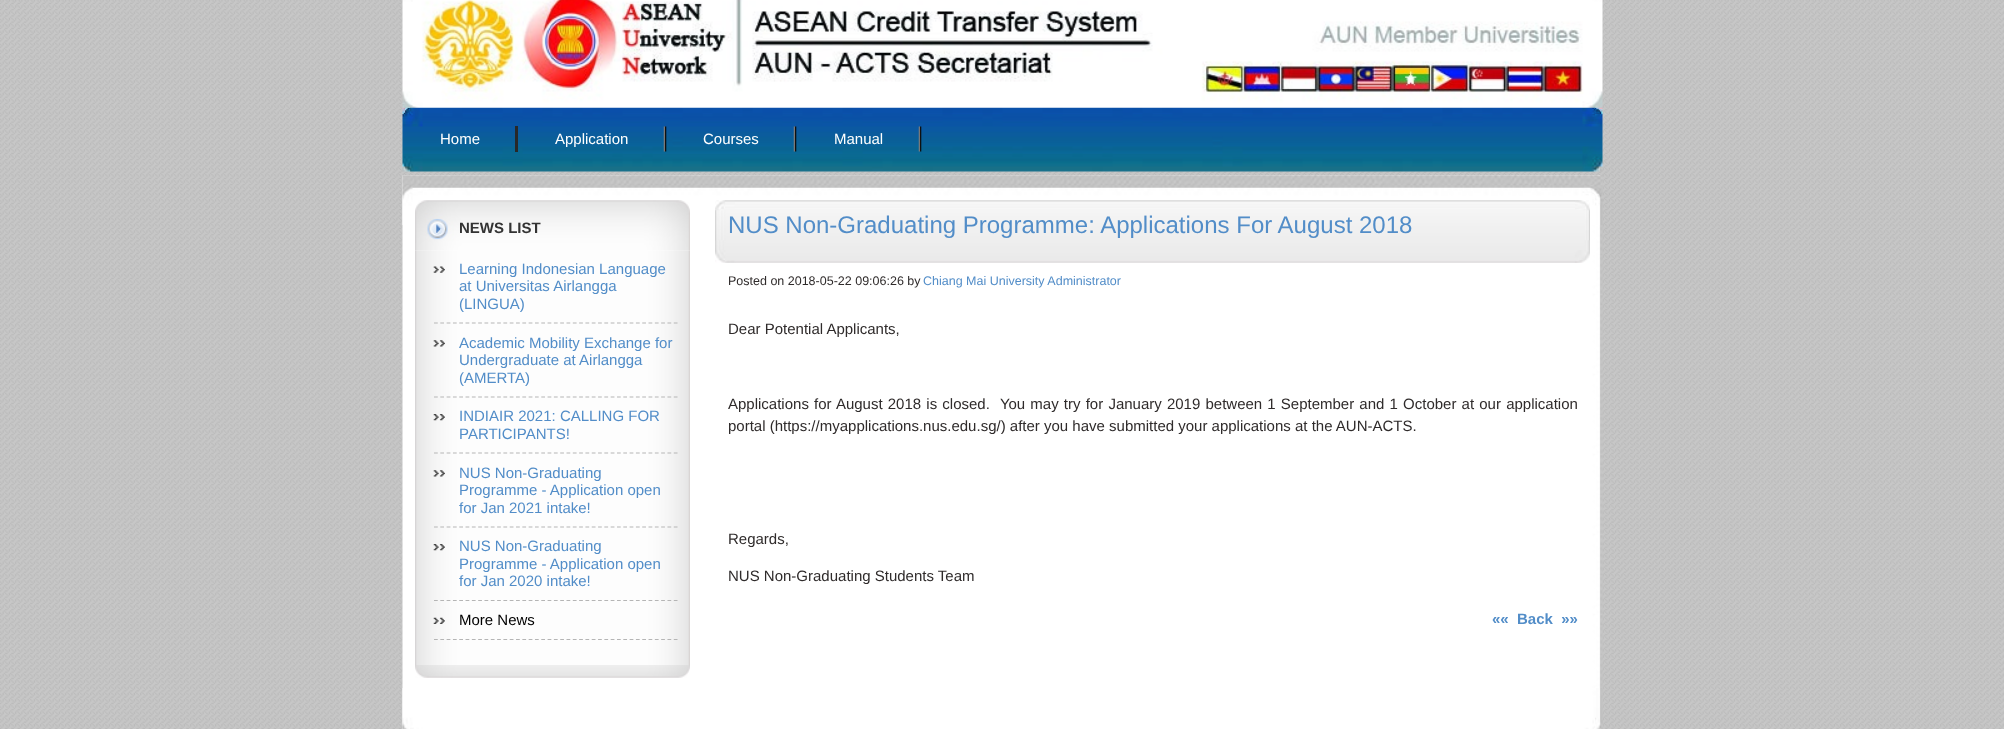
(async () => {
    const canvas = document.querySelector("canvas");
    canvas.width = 2004;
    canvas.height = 729;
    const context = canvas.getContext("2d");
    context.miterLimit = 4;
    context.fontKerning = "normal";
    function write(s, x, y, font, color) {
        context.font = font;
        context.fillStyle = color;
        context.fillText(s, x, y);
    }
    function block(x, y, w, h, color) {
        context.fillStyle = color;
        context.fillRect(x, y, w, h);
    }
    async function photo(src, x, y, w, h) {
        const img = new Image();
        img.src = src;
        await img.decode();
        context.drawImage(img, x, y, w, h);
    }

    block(0, 0, 2004, 729, "rgb(255, 255, 255)");
    await photo("media/1.png", 0, 0, 2004, 729);
    await photo("media/3.png", 402, 106, 1201, 66);
    await photo("media/2.png", 402, 0, 1201, 108);
    block(515, 126, 3, 26, "rgb(40, 40, 40)");
    write("Home", 440, 144, "15px Liberation Sans", "rgb(255, 255, 255)");
    await photo("media/4.png", 663, 126, 4, 26);
    write("Application", 555, 144, "15px Liberation Sans", "rgb(255, 255, 255)");
    await photo("media/4.png", 793, 126, 4, 26);
    write("Courses", 703, 144, "15px Liberation Sans", "rgb(255, 255, 255)");
    await photo("media/4.png", 918, 126, 4, 26);
    write("Manual", 834, 144, "15px Liberation Sans", "rgb(255, 255, 255)");
    await photo("media/5.png", 402, 175, 1201, 554);
    await photo("media/6.png", 402, 175, 1201, 50);
    await photo("media/7.png", 402, 688, 1201, 41);
    await photo("media/8.png", 415, 665, 275, 13);
    await photo("media/9.png", 415, 200, 275, 51);
    write("NEWS LIST", 459, 233, "bold 15px Liberation Sans", "rgb(51, 51, 51)");
    await photo("media/10.png", 415, 250, 275, 415);
    await photo("media/11.png", 433, 266, 12, 7);
    context.beginPath();
    context.moveTo(434, 323);
    context.lineTo(677.5, 323);
    context.strokeStyle = "rgb(181, 181, 181)";
    context.lineWidth = 1.2;
    context.setLineDash([3.75, 2.56]);
    context.stroke();
    write("Learning Indonesian Language", 459, 274, "15px Liberation Sans", "rgb(82, 141, 200)");
    write("at Universitas Airlangga", 459, 291, "15px Liberation Sans", "rgb(82, 141, 200)");
    write("(LINGUA)", 459, 309, "15px Liberation Sans", "rgb(82, 141, 200)");
    await photo("media/12.png", 433, 340, 12, 7);
    context.beginPath();
    context.moveTo(434, 397);
    context.lineTo(677.5, 397);
    context.stroke();
    write("Academic Mobility Exchange for", 459, 348, "15px Liberation Sans", "rgb(82, 141, 200)");
    write("Undergraduate at Airlangga", 459, 365, "15px Liberation Sans", "rgb(82, 141, 200)");
    write("(AMERTA)", 459, 383, "15px Liberation Sans", "rgb(82, 141, 200)");
    await photo("media/13.png", 433, 414, 12, 7);
    context.beginPath();
    context.moveTo(434, 453);
    context.lineTo(677.5, 453);
    context.stroke();
    write("INDIAIR 2021: CALLING FOR", 459, 421, "15px Liberation Sans", "rgb(82, 141, 200)");
    write("PARTICIPANTS!", 459, 439, "15px Liberation Sans", "rgb(82, 141, 200)");
    await photo("media/12.png", 433, 470, 12, 7);
    context.beginPath();
    context.moveTo(434, 527);
    context.lineTo(677.5, 527);
    context.stroke();
    write("NUS Non-Graduating", 459, 478, "15px Liberation Sans", "rgb(82, 141, 200)");
    write("Programme - Application open", 459, 495, "15px Liberation Sans", "rgb(82, 141, 200)");
    write("for Jan 2021 intake!", 459, 513, "15px Liberation Sans", "rgb(82, 141, 200)");
    await photo("media/13.png", 433, 544, 12, 7);
    context.beginPath();
    context.moveTo(434, 600.5);
    context.lineTo(677.5, 600.5);
    context.stroke();
    write("NUS Non-Graduating", 459, 551, "15px Liberation Sans", "rgb(82, 141, 200)");
    write("Programme - Application open", 459, 569, "15px Liberation Sans", "rgb(82, 141, 200)");
    write("for Jan 2020 intake!", 459, 586, "15px Liberation Sans", "rgb(82, 141, 200)");
    await photo("media/14.png", 433, 617, 12, 7);
    context.beginPath();
    context.moveTo(434, 639.5);
    context.lineTo(677.5, 639.5);
    context.stroke();
    write("More News", 459, 625, "15px Liberation Sans", "rgb(0, 0, 0)");
    await photo("media/15.png", 715, 200, 875, 63);
    write("NUS Non-Graduating Programme: Applications For August 2018", 728, 233, "24px Liberation Sans", "rgb(82, 141, 200)");
    write("Posted on 2018-05-22 09:06:26 by", 728, 285, "12.5px Liberation Sans", "rgb(47, 43, 43)");
    write("Chiang Mai University Administrator", 923, 285, "12.5px Liberation Sans", "rgb(82, 141, 200)");
    write("Dear Potential Applicants,", 728, 334, "15px Liberation Sans", "rgb(47, 43, 43)");
    context.wordSpacing = "1px";
    write("Applications for August 2018 is closed.  You may try for January 2019 between 1 September and 1 October at our application", 728, 409, "15px Liberation Sans", "rgb(47, 43, 43)");
    context.wordSpacing = "0px";
    write("portal (https://myapplications.nus.edu.sg/) after you have submitted your applications at the AUN-ACTS.", 728, 431, "15px Liberation Sans", "rgb(47, 43, 43)");
    write("Regards,", 728, 544, "15px Liberation Sans", "rgb(47, 43, 43)");
    write("NUS Non-Graduating Students Team", 728, 581, "15px Liberation Sans", "rgb(47, 43, 43)");
    write("««  Back  »»", 1492, 624, "bold 15px Liberation Sans", "rgb(82, 141, 200)");
})();
